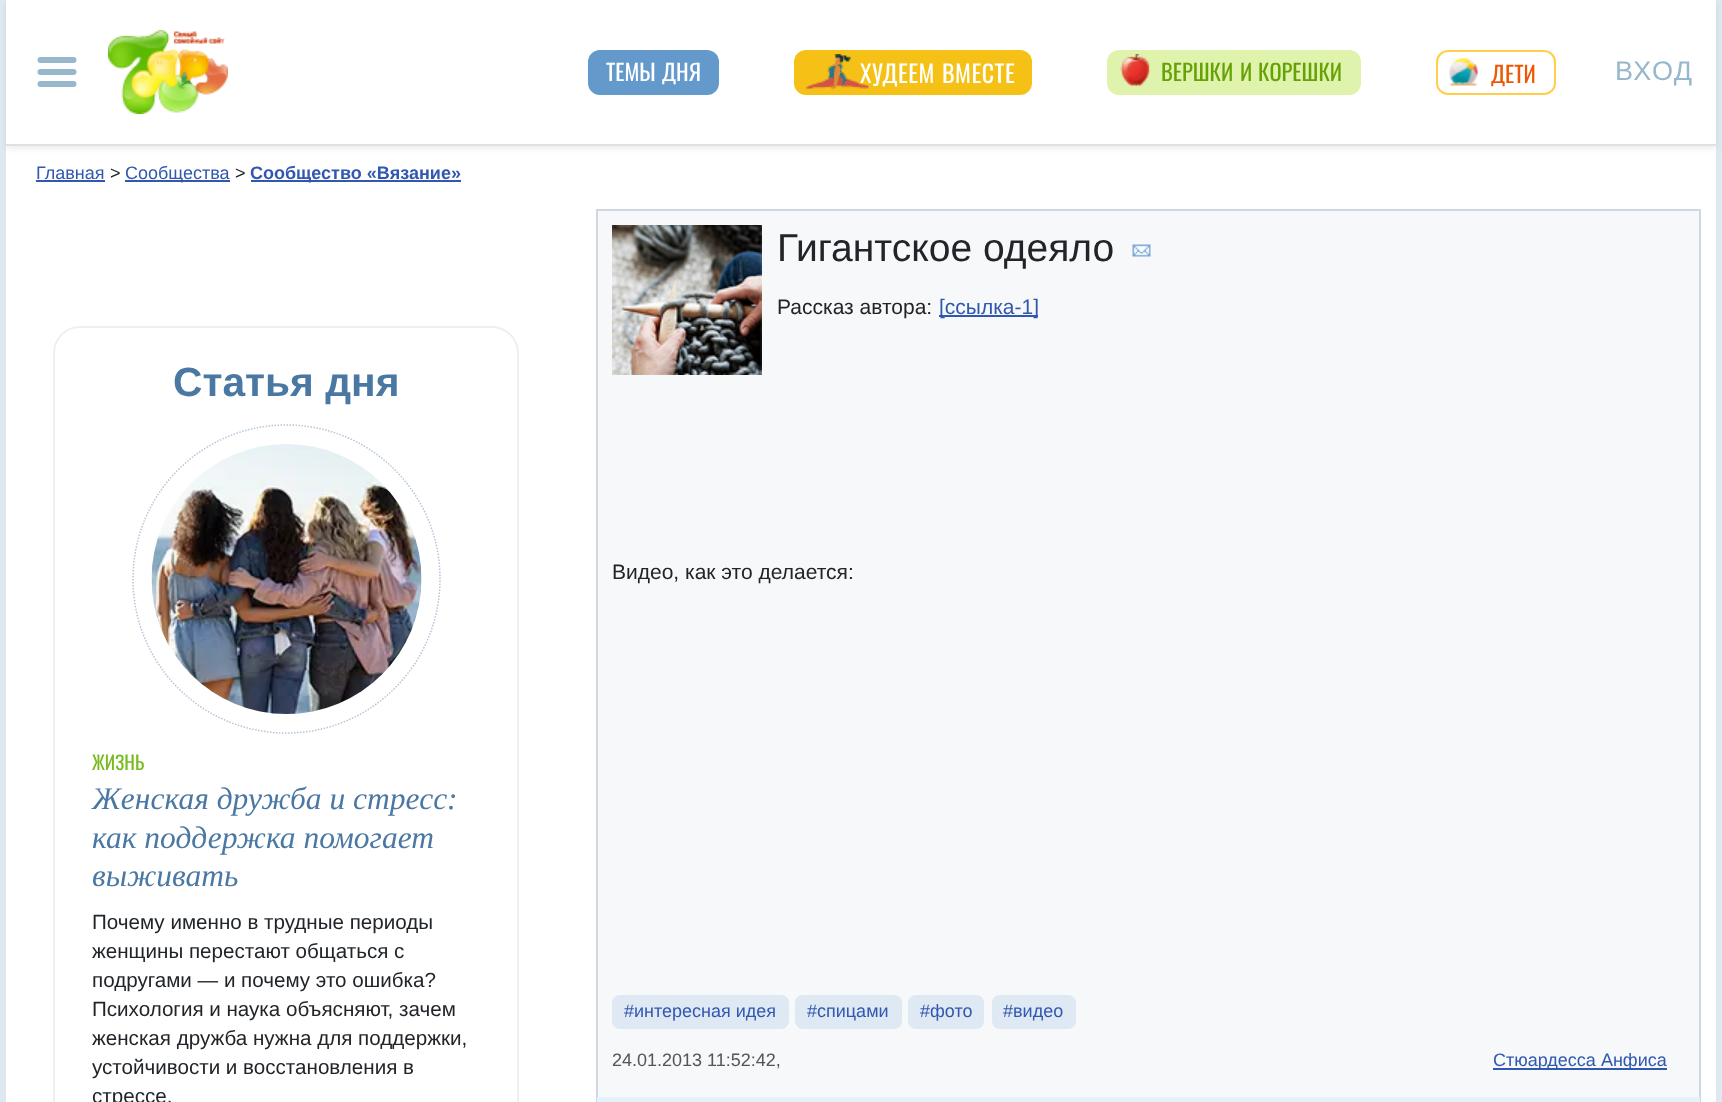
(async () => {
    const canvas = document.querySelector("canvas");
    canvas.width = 1722;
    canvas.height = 1102;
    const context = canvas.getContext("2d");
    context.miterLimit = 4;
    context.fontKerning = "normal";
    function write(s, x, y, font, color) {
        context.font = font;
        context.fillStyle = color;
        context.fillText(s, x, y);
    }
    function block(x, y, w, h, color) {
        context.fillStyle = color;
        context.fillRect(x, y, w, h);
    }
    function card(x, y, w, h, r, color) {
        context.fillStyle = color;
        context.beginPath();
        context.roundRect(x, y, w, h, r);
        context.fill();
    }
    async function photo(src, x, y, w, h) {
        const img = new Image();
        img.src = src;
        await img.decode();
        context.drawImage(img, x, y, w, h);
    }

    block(0, 0, 1722, 1102, "rgb(222, 232, 241)");
    block(6, 146, 1710, 956, "rgb(255, 255, 255)");
    context.fillStyle = "rgba(0, 0, 0, 0.07)";
    context.filter = "blur(3px)";
    context.beginPath();
    context.rect(6, 3, 1710, 146);
    context.fill();
    context.filter = "none";
    block(6, 0, 1710, 144, "rgb(255, 255, 255)");
    block(6, 144, 1710, 2, "rgb(222, 226, 230)");
    context.beginPath();
    context.moveTo(40.5, 60);
    context.lineTo(73.5, 60);
    context.moveTo(40.5, 72);
    context.lineTo(73.5, 72);
    context.moveTo(40.5, 84);
    context.lineTo(73.5, 84);
    context.strokeStyle = "rgb(150, 183, 204)";
    context.lineWidth = 6;
    context.lineCap = "round";
    context.stroke();
    await photo("media/1.png", 108, 30, 120, 84);
    card(588, 50, 131, 45, 12, "rgb(99, 153, 203)");
    write("ТЕМЫ", 606, 81, "22.5px Oswald", "rgb(255, 255, 255)");
    write("ДНЯ", 662, 81, "22.5px Oswald", "rgb(255, 255, 255)");
    card(794, 50, 238, 45, 12, "rgb(246, 193, 23)");
    context.letterSpacing = "0.5px";
    write("ХУДЕЕМ", 860, 83, "24px Oswald", "rgb(255, 255, 255)");
    await photo("media/2.png", 805, 54, 64, 36);
    write("ВМЕСТЕ", 942, 83, "24px Oswald", "rgb(255, 255, 255)");
    card(1107, 50, 254, 45, 12, "rgb(224, 243, 173)");
    await photo("media/3.png", 1120, 54, 30, 32);
    context.letterSpacing = "0px";
    write("ВЕРШКИ", 1161, 81, "22.5px Oswald", "rgb(102, 162, 6)");
    write("И", 1240, 81, "22.5px Oswald", "rgb(102, 162, 6)");
    write("КОРЕШКИ", 1258, 81, "22.5px Oswald", "rgb(102, 162, 6)");
    context.beginPath();
    context.roundRect(1437, 51, 118, 43, 11);
    context.strokeStyle = "rgb(255, 207, 76)";
    context.lineWidth = 2;
    context.stroke();
    await photo("media/4.png", 1449, 58, 29, 28);
    write("ДЕТИ", 1491, 83, "22.5px Oswald", "rgb(234, 90, 6)");
    context.letterSpacing = "1.5px";
    write("ВХОД", 1615, 80, "27px Liberation Sans", "rgb(150, 183, 204)");
    context.letterSpacing = "0px";
    write("Главная", 36, 179, "18px Liberation Sans", "rgb(49, 87, 176)");
    block(36, 180, 69, 2, "rgb(49, 87, 176)");
    write(">", 110, 179, "18px Liberation Sans", "rgb(33, 37, 41)");
    block(125, 180, 105, 2, "rgb(49, 87, 176)");
    write("Сообщества", 125, 179, "18px Liberation Sans", "rgb(49, 87, 176)");
    write(">", 235, 179, "18px Liberation Sans", "rgb(33, 37, 41)");
    block(251, 180, 210, 2, "rgb(49, 87, 176)");
    write("Сообщество «Вязание»", 250, 179, "bold 18px Liberation Sans", "rgb(49, 87, 176)");
    context.beginPath();
    context.roundRect(54, 327, 464, 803, 26);
    context.strokeStyle = "rgb(239, 239, 239)";
    context.stroke();
    write("Статья дня", 173, 396, "bold 40.75px Liberation Sans", "rgb(74, 120, 163)");
    context.beginPath();
    context.moveTo(286.5, 425);
    context.bezierCurveTo(371.5, 425, 440, 494, 440, 579);
    context.bezierCurveTo(440, 664, 371.5, 733, 286.5, 733);
    context.bezierCurveTo(201.5, 733, 133, 664, 133, 579);
    context.bezierCurveTo(133, 494, 201.5, 425, 286.5, 425);
    context.closePath();
    context.strokeStyle = "rgb(180, 197, 214)";
    context.lineWidth = 1.5;
    context.lineCap = "butt";
    context.setLineDash([1.5, 1.5]);
    context.stroke();
    await photo("media/5.png", 151, 444, 271, 270);
    write("ЖИЗНЬ", 92, 770, "19px Oswald", "rgb(119, 187, 31)");
    write("Женская дружба и стресс:", 92, 809, "italic 31.5px Liberation Serif", "rgb(74, 120, 163)");
    write("как поддержка помогает", 92, 848, "italic 31.5px Liberation Serif", "rgb(74, 120, 163)");
    write("выживать", 92, 886, "italic 31.5px Liberation Serif", "rgb(74, 120, 163)");
    write("Почему именно в трудные периоды", 92, 929, "20.6px Liberation Sans", "rgb(33, 37, 41)");
    write("женщины перестают общаться с", 92, 958, "20.6px Liberation Sans", "rgb(33, 37, 41)");
    write("подругами — и почему это ошибка?", 92, 987, "20.6px Liberation Sans", "rgb(33, 37, 41)");
    write("Психология и наука объясняют, зачем", 92, 1016, "20.6px Liberation Sans", "rgb(33, 37, 41)");
    write("женская дружба нужна для поддержки,", 92, 1045, "20.6px Liberation Sans", "rgb(33, 37, 41)");
    write("устойчивости и восстановления в", 92, 1074, "20.6px Liberation Sans", "rgb(33, 37, 41)");
    write("стрессе.", 92, 1103, "20.6px Liberation Sans", "rgb(33, 37, 41)");
    block(598, 211, 1101, 886, "rgb(246, 248, 249)");
    context.strokeStyle = "rgb(206, 216, 226)";
    context.lineWidth = 2;
    context.setLineDash([]);
    context.strokeRect(597, 210, 1103, 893);
    await photo("media/6.png", 612, 225, 150, 150);
    write("Гигантское одеяло", 777, 261, "39px Liberation Sans", "rgb(33, 37, 41)");
    await photo("media/7.png", 1132, 244, 19, 13);
    write("Рассказ автора:", 777, 314, "21px Liberation Sans", "rgb(33, 37, 41)");
    block(939, 315, 99, 2, "rgb(49, 87, 176)");
    write("[ссылка-1]", 939, 314, "21px Liberation Sans", "rgb(49, 87, 176)");
    write("Видео, как это делается:", 612, 579, "21px Liberation Sans", "rgb(33, 37, 41)");
    card(612, 995, 177, 34, 8, "rgb(222, 233, 244)");
    write("#интересная идея", 624, 1017, "18px Liberation Sans", "rgb(49, 87, 176)");
    card(795, 995, 107, 34, 8, "rgb(222, 233, 244)");
    write("#спицами", 807, 1017, "18px Liberation Sans", "rgb(49, 87, 176)");
    card(908, 995, 76, 34, 8, "rgb(222, 233, 244)");
    write("#фото", 920, 1017, "18px Liberation Sans", "rgb(49, 87, 176)");
    card(992, 995, 84, 34, 8, "rgb(222, 233, 244)");
    write("#видео", 1003, 1017, "18px Liberation Sans", "rgb(49, 87, 176)");
    write("24.01.2013 11:52:42,", 612, 1066, "18px Liberation Sans", "rgb(85, 85, 85)");
    block(1493, 1068, 174, 2, "rgb(49, 87, 176)");
    write("Стюардесса Анфиса", 1493, 1066, "18px Liberation Sans", "rgb(49, 87, 176)");
    block(597, 1097, 1103, 5, "rgb(229, 241, 251)");
})();
